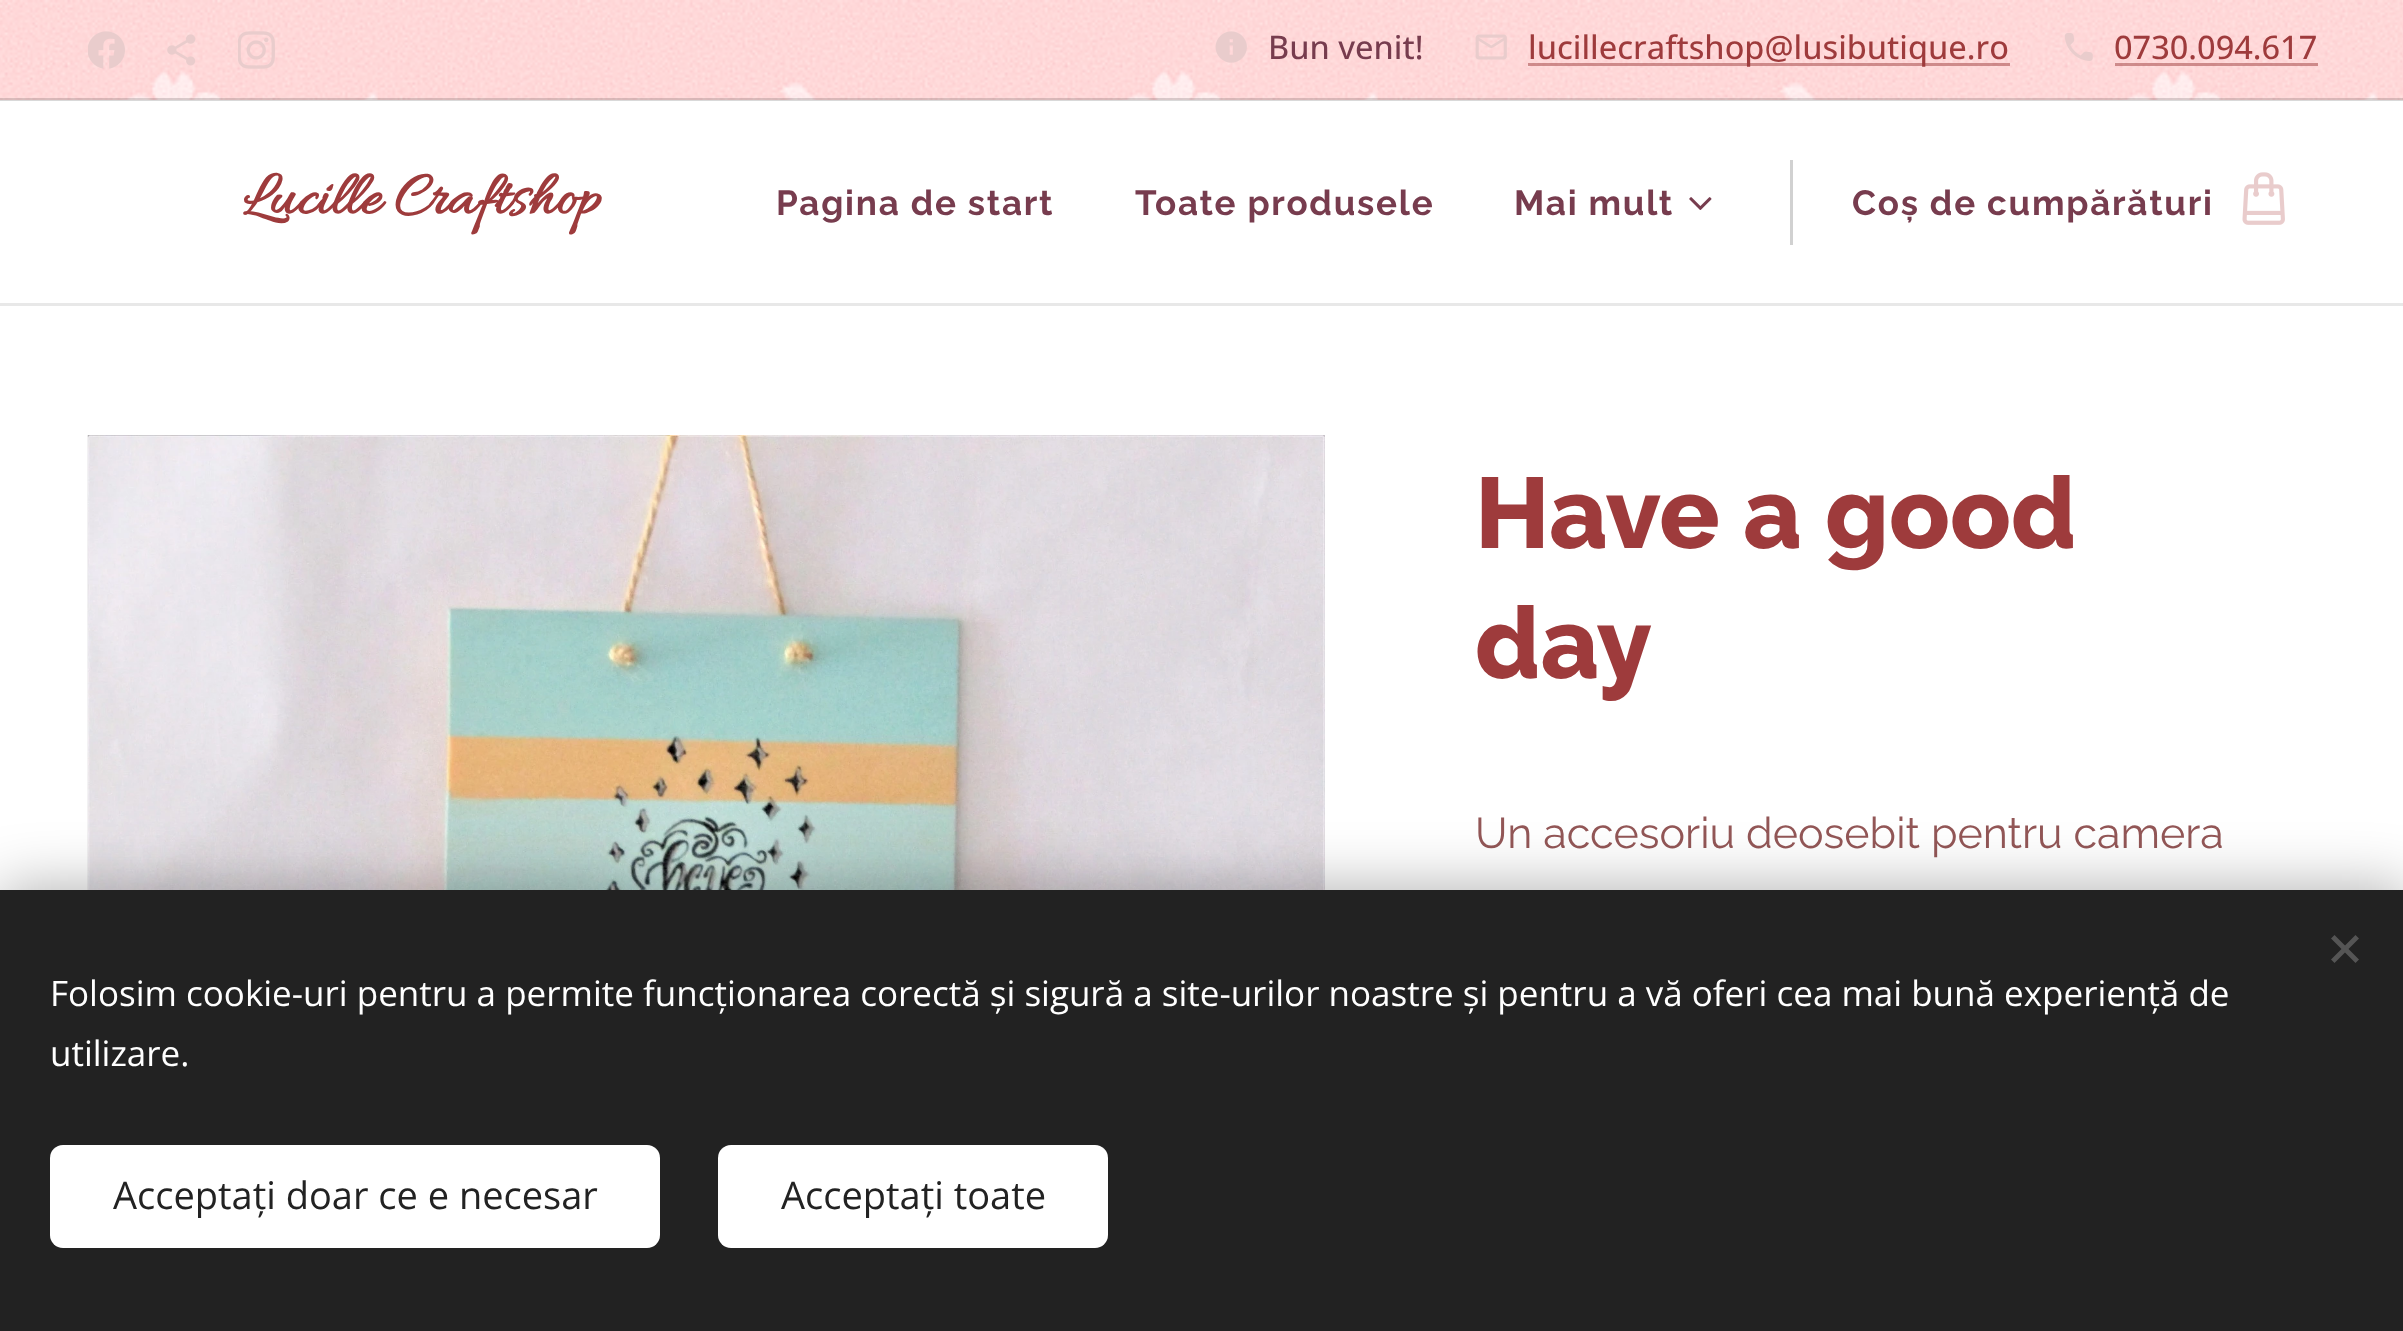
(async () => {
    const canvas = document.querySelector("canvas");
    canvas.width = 2403;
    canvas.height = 1331;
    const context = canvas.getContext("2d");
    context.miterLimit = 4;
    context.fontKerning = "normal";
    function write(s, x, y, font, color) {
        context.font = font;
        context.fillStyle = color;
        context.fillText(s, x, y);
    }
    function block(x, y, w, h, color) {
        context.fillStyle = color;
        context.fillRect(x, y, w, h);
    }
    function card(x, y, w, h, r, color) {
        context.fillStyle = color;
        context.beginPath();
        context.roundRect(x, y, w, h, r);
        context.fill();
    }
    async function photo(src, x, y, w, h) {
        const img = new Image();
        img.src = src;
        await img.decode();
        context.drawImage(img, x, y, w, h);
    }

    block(0, 0, 2403, 1331, "rgb(255, 255, 255)");
    await photo("media/1.png", 0, 0, 2403, 100);
    await photo("media/2.png", 88, 31, 37, 38);
    await photo("media/3.png", 167, 34, 29, 32);
    await photo("media/4.png", 238, 31, 37, 38);
    await photo("media/5.png", 1215, 31, 32, 32);
    write("Bun venit!", 1268, 59, "500 32.5px Open Sans", "rgb(119, 60, 78)");
    await photo("media/6.png", 1475, 34, 32, 26);
    block(1528, 63, 482, 3, "rgba(158, 59, 60, 0.5)");
    write("lucillecraftshop@lusibutique.ro", 1528, 59, "500 32.5px Open Sans", "rgb(158, 59, 60)");
    await photo("media/7.png", 2064, 33, 29, 28);
    write("0730.094.617", 2114, 59, "500 32.5px Open Sans", "rgb(158, 59, 60)");
    block(2115, 63, 203, 3, "rgba(158, 59, 60, 0.5)");
    block(0, 98, 2403, 3, "rgba(0, 0, 0, 0.15)");
    write("Lucille Craftshop", 243, 213, "bold 63px Allura", "rgb(158, 59, 60)");
    context.letterSpacing = "1.75px";
    write("Pagina de start", 776, 215, "bold 35px Raleway", "rgb(119, 60, 78)");
    write("Toate produsele", 1135, 215, "bold 35px Raleway", "rgb(119, 60, 78)");
    write("Mai mult", 1514, 215, "bold 35px Raleway", "rgb(119, 60, 78)");
    await photo("media/8.png", 1689, 197, 23, 13);
    block(1790, 160, 3, 85, "rgb(209, 209, 209)");
    write("Coș de cumpărături", 1852, 215, "bold 35px Raleway", "rgb(119, 60, 78)");
    await photo("media/9.png", 2242, 172, 43, 53);
    block(0, 303, 2403, 3, "rgb(232, 232, 232)");
    await photo("media/10.png", 87, 435, 1238, 455);
    context.letterSpacing = "0px";
    write("Have a good", 1475, 548, "800 100px Raleway", "rgb(158, 59, 60)");
    write("day", 1475, 678, "800 100px Raleway", "rgb(158, 59, 60)");
    write("Un accesoriu deosebit pentru camera", 1475, 848, "43px Raleway", "rgb(147, 87, 87)");
    context.fillStyle = "rgba(0, 0, 0, 0.33)";
    context.filter = "blur(31px)";
    context.beginPath();
    context.rect(0, 890, 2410, 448);
    context.fill();
    context.filter = "none";
    block(0, 890, 2403, 441, "rgb(34, 34, 34)");
    context.fillStyle = "rgb(85, 85, 85)";
    context.beginPath();
    context.moveTo(2331, 959.5);
    context.lineTo(2355.5, 935);
    context.lineTo(2359, 938.5);
    context.lineTo(2334.5, 963);
    context.closePath();
    context.fill();
    context.beginPath();
    context.moveTo(2334.5, 935);
    context.lineTo(2359, 959.5);
    context.lineTo(2355.5, 963);
    context.lineTo(2331, 938.5);
    context.closePath();
    context.fill();
    write("Folosim cookie-uri pentru a permite funcționarea corectă și sigură a site-urilor noastre și pentru a vă oferi cea mai bună experiență de", 50, 1006, "35px Open Sans", "rgb(255, 255, 255)");
    write("utilizare.", 50, 1066, "35px Open Sans", "rgb(255, 255, 255)");
    card(50, 1145, 610, 103, 13, "rgb(255, 255, 255)");
    write("Acceptați doar ce e necesar", 113, 1209, "38px Open Sans", "rgb(34, 34, 34)");
    card(718, 1145, 390, 103, 13, "rgb(255, 255, 255)");
    write("Acceptați toate", 781, 1209, "38px Open Sans", "rgb(34, 34, 34)");
})();
